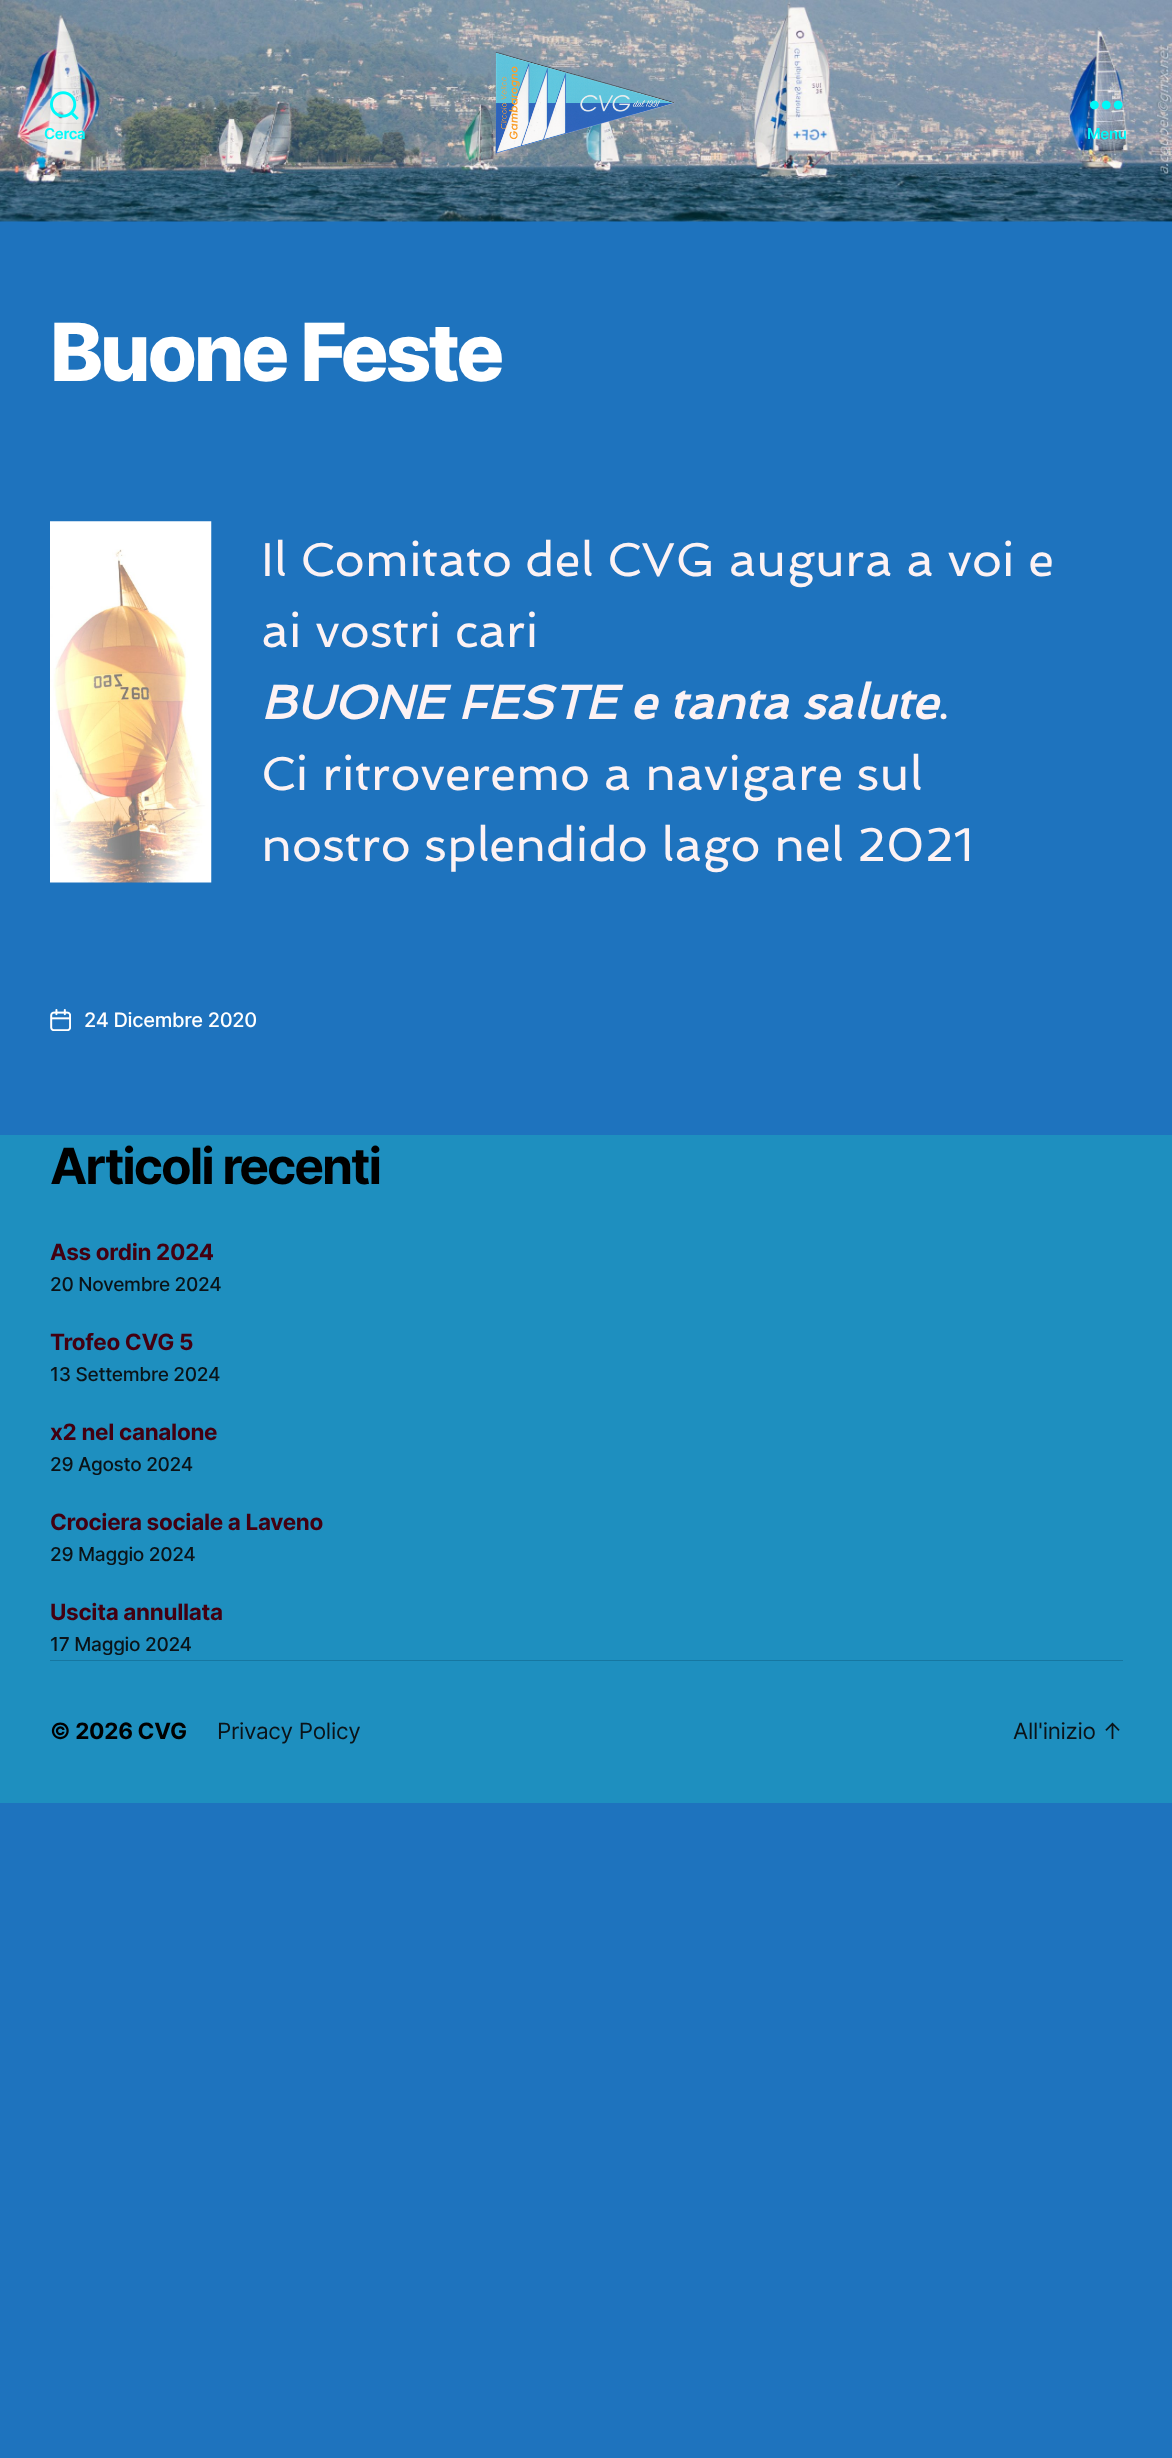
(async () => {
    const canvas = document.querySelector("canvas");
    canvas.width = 1172;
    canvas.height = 2458;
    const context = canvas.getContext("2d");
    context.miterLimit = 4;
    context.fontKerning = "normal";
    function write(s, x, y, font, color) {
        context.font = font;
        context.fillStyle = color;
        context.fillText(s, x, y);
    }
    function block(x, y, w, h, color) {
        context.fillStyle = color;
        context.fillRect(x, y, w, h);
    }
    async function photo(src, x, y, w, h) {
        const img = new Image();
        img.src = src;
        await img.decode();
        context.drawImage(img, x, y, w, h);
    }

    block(0, 0, 1172, 2458, "rgb(30, 115, 190)");
    await photo("media/1.png", 0, 0, 1172, 222);
    await photo("media/2.png", 50, 91, 29, 29);
    context.letterSpacing = "-0.3px";
    write("Cerca", 44, 139, "600 15px Inter", "rgb(0, 249, 249)");
    await photo("media/3.png", 495, 51, 179, 103);
    await photo("media/4.png", 1090, 100, 33, 10);
    write("Menu", 1087, 139, "600 15px Inter", "rgb(0, 249, 249)");
    context.letterSpacing = "-3.25px";
    write("Buone Feste", 50, 381, "800 80px Inter", "rgb(255, 255, 255)");
    await photo("media/5.png", 50, 521, 162, 362);
    context.letterSpacing = "0px";
    write("Il Comitato del CVG augura a voi e", 261, 576, "47.5px Spinnaker", "rgb(252, 242, 244)");
    write("ai vostri cari", 261, 647, "47.5px Spinnaker", "rgb(252, 242, 244)");
    write("BUONE FESTE e tanta salute", 261, 719, "italic bold 47.5px Spinnaker", "rgb(252, 242, 244)");
    write(".", 937, 719, "47.5px Spinnaker", "rgb(252, 242, 244)");
    write("Ci ritroveremo a navigare sul", 261, 790, "47.5px Spinnaker", "rgb(252, 242, 244)");
    write("nostro splendido lago nel 2021", 261, 861, "47.5px Spinnaker", "rgb(252, 242, 244)");
    await photo("media/6.png", 50, 1009, 21, 22);
    context.letterSpacing = "-0.3px";
    write("24 Dicembre 2020", 84, 1027, "500 20px Inter", "rgb(255, 255, 255)");
    block(0, 1135, 1172, 668, "rgb(30, 143, 191)");
    block(50, 1660, 1073, 1, "rgb(22, 119, 161)");
    context.letterSpacing = "-2.1px";
    write("Articoli recenti", 50, 1184, "bold 50px Inter", "rgb(0, 0, 0)");
    context.letterSpacing = "-0.3px";
    write("Ass ordin 2024", 50, 1260, "bold 22.5px Inter", "rgb(66, 0, 17)");
    write("20 Novembre 2024", 50, 1291, "500 19.1px Inter", "rgb(11, 19, 24)");
    write("Trofeo CVG 5", 50, 1350, "bold 22.5px Inter", "rgb(66, 0, 17)");
    write("13 Settembre 2024", 50, 1381, "500 19.1px Inter", "rgb(11, 19, 24)");
    write("x2 nel canalone", 50, 1440, "bold 22.5px Inter", "rgb(66, 0, 17)");
    write("29 Agosto 2024", 50, 1471, "500 19.1px Inter", "rgb(11, 19, 24)");
    write("Crociera sociale a Laveno", 50, 1530, "bold 22.5px Inter", "rgb(66, 0, 17)");
    write("29 Maggio 2024", 50, 1561, "500 19.1px Inter", "rgb(11, 19, 24)");
    write("Uscita annullata", 50, 1620, "bold 22.5px Inter", "rgb(66, 0, 17)");
    write("17 Maggio 2024", 50, 1651, "500 19.1px Inter", "rgb(11, 19, 24)");
    write("© 2026 CVG", 50, 1739, "bold 22.5px Inter", "rgb(0, 0, 0)");
    write("Privacy Policy", 217, 1739, "22.5px Inter", "rgb(11, 19, 24)");
    write("All'inizio ↑", 1013, 1739, "22.5px Inter", "rgb(11, 19, 24)");
})();
